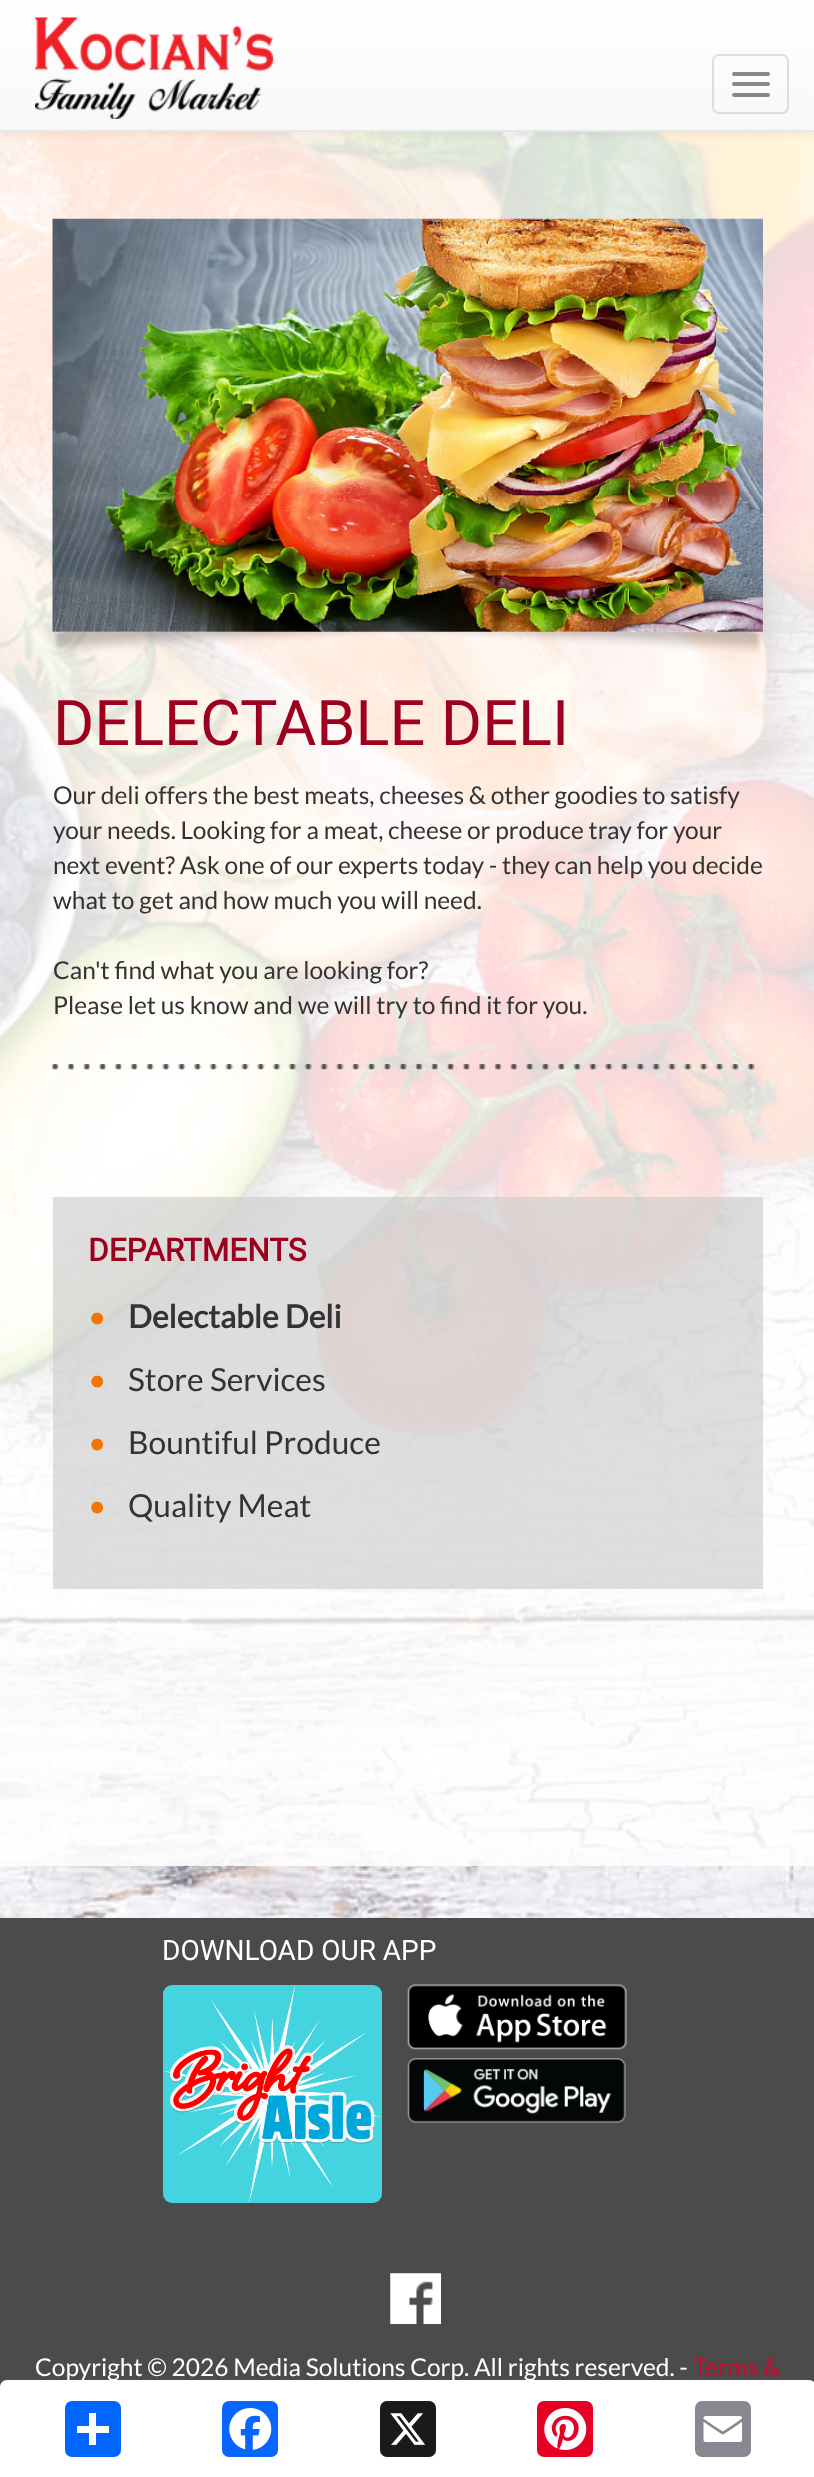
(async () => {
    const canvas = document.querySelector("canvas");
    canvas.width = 814;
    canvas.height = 2477;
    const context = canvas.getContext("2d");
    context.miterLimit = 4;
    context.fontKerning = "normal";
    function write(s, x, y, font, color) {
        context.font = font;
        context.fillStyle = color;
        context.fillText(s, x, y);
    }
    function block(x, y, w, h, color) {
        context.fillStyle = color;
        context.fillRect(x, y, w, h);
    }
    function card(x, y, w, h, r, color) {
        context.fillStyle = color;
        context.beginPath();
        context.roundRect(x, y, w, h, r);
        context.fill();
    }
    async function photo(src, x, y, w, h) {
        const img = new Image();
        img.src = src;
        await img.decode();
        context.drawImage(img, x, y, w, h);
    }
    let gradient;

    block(0, 0, 814, 2477, "rgb(255, 255, 255)");
    await photo("media/1.png", 0, 132, 814, 1786);
    block(0, 132, 814, 1734, "rgba(255, 255, 255, 0.85)");
    context.fillStyle = "rgba(0, 0, 0, 0.07)";
    context.filter = "blur(4.5px)";
    context.beginPath();
    context.rect(0, 2, 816, 131);
    context.fill();
    context.filter = "none";
    gradient = context.createLinearGradient(408, 0, 408, 130);
    gradient.addColorStop(0, "rgb(255, 255, 255)");
    gradient.addColorStop(1, "rgb(248, 248, 248)");
    context.fillStyle = gradient;
    context.fillRect(0, 0, 814, 130);
    block(0, 130, 814, 2, "rgb(231, 231, 231)");
    await photo("media/2.png", 35, 17, 239, 102);
    context.beginPath();
    context.roundRect(713, 55, 75, 58, 6);
    context.strokeStyle = "rgb(221, 221, 221)";
    context.lineWidth = 2;
    context.stroke();
    card(732, 72, 38, 4, 2, "rgb(136, 136, 136)");
    card(732, 82, 38, 4, 2, "rgb(136, 136, 136)");
    card(732, 93, 38, 4, 2, "rgb(136, 136, 136)");
    await photo("media/4.png", 53, 631, 709, 22);
    await photo("media/3.png", 52, 218, 711, 414);
    write("DELECTABLE DELI", 53, 745, "63px Roboto", "rgb(157, 0, 30)");
    write("Our deli offers the best meats, cheeses & other goodies to satisfy", 53, 804, "24.5px Lato", "rgb(51, 51, 51)");
    write("your needs. Looking for a meat, cheese or produce tray for your", 53, 839, "24.5px Lato", "rgb(51, 51, 51)");
    write("next event? Ask one of our experts today - they can help you decide", 53, 874, "24.5px Lato", "rgb(51, 51, 51)");
    write("what to get and how much you will need.", 53, 909, "24.5px Lato", "rgb(51, 51, 51)");
    write("Can't find what you are looking for?", 53, 979, "24.5px Lato", "rgb(51, 51, 51)");
    write("Please let us know and we will try to find it for you.", 53, 1014, "24.5px Lato", "rgb(51, 51, 51)");
    await photo("media/5.png", 52, 1064, 703, 6);
    block(53, 1197, 710, 392, "rgba(204, 204, 204, 0.65)");
    write("DEPARTMENTS", 88, 1261, "bold 31.5px Roboto", "rgb(157, 0, 30)");
    write("•", 88, 1328, "31.75px Lato", "rgb(242, 116, 5)");
    write("Delectable Deli", 128, 1328, "bold 31.75px Lato", "rgb(51, 51, 51)");
    write("•", 88, 1391, "31.75px Lato", "rgb(242, 116, 5)");
    write("Store Services", 128, 1391, "31.75px Lato", "rgb(51, 51, 51)");
    write("•", 88, 1454, "31.75px Lato", "rgb(242, 116, 5)");
    write("Bountiful Produce", 128, 1454, "31.75px Lato", "rgb(51, 51, 51)");
    write("•", 88, 1517, "31.75px Lato", "rgb(242, 116, 5)");
    write("Quality Meat", 128, 1517, "31.75px Lato", "rgb(51, 51, 51)");
    block(0, 1918, 814, 469, "rgb(75, 75, 75)");
    write("DOWNLOAD OUR APP", 162, 1960, "28px Roboto", "rgb(255, 255, 255)");
    card(163, 1985, 219, 218, 9, "rgb(67, 212, 223)");
    await photo("media/6.png", 163, 1984, 218, 219);
    await photo("media/7.png", 407, 1984, 220, 66);
    await photo("media/8.png", 407, 2058, 219, 65);
    await photo("media/9.png", 390, 2273, 51, 51);
    write("Copyright © 2026 Media Solutions Corp. All rights reserved. -", 35, 2376, "24.5px Lato", "rgb(255, 255, 255)");
    write("Terms &", 693, 2376, "24.5px Lato", "rgb(217, 4, 45)");
    context.fillStyle = "rgb(255, 255, 255)";
    context.beginPath();
    context.moveTo(7, 2380);
    context.lineTo(809, 2380);
    context.bezierCurveTo(813, 2380, 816, 2383, 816, 2387);
    context.lineTo(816, 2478);
    context.lineTo(0, 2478);
    context.lineTo(0, 2387);
    context.bezierCurveTo(0, 2383, 3, 2380, 7, 2380);
    context.closePath();
    context.fill();
    card(65, 2401, 56, 56, 7, "rgb(1, 102, 255)");
    block(89, 2413, 7, 32, "rgb(255, 255, 255)");
    block(77, 2426, 32, 7, "rgb(255, 255, 255)");
    card(222, 2401, 56, 56, 7, "rgb(8, 102, 255)");
    await photo("media/10.png", 229, 2408, 43, 42);
    card(380, 2401, 56, 56, 7, "rgb(26, 26, 26)");
    await photo("media/11.png", 390, 2413, 36, 32);
    card(537, 2401, 56, 56, 7, "rgb(230, 0, 35)");
    await photo("media/12.png", 544, 2408, 43, 42);
    card(695, 2401, 56, 56, 7, "rgb(136, 137, 144)");
    await photo("media/13.png", 703, 2416, 39, 26);
})();
